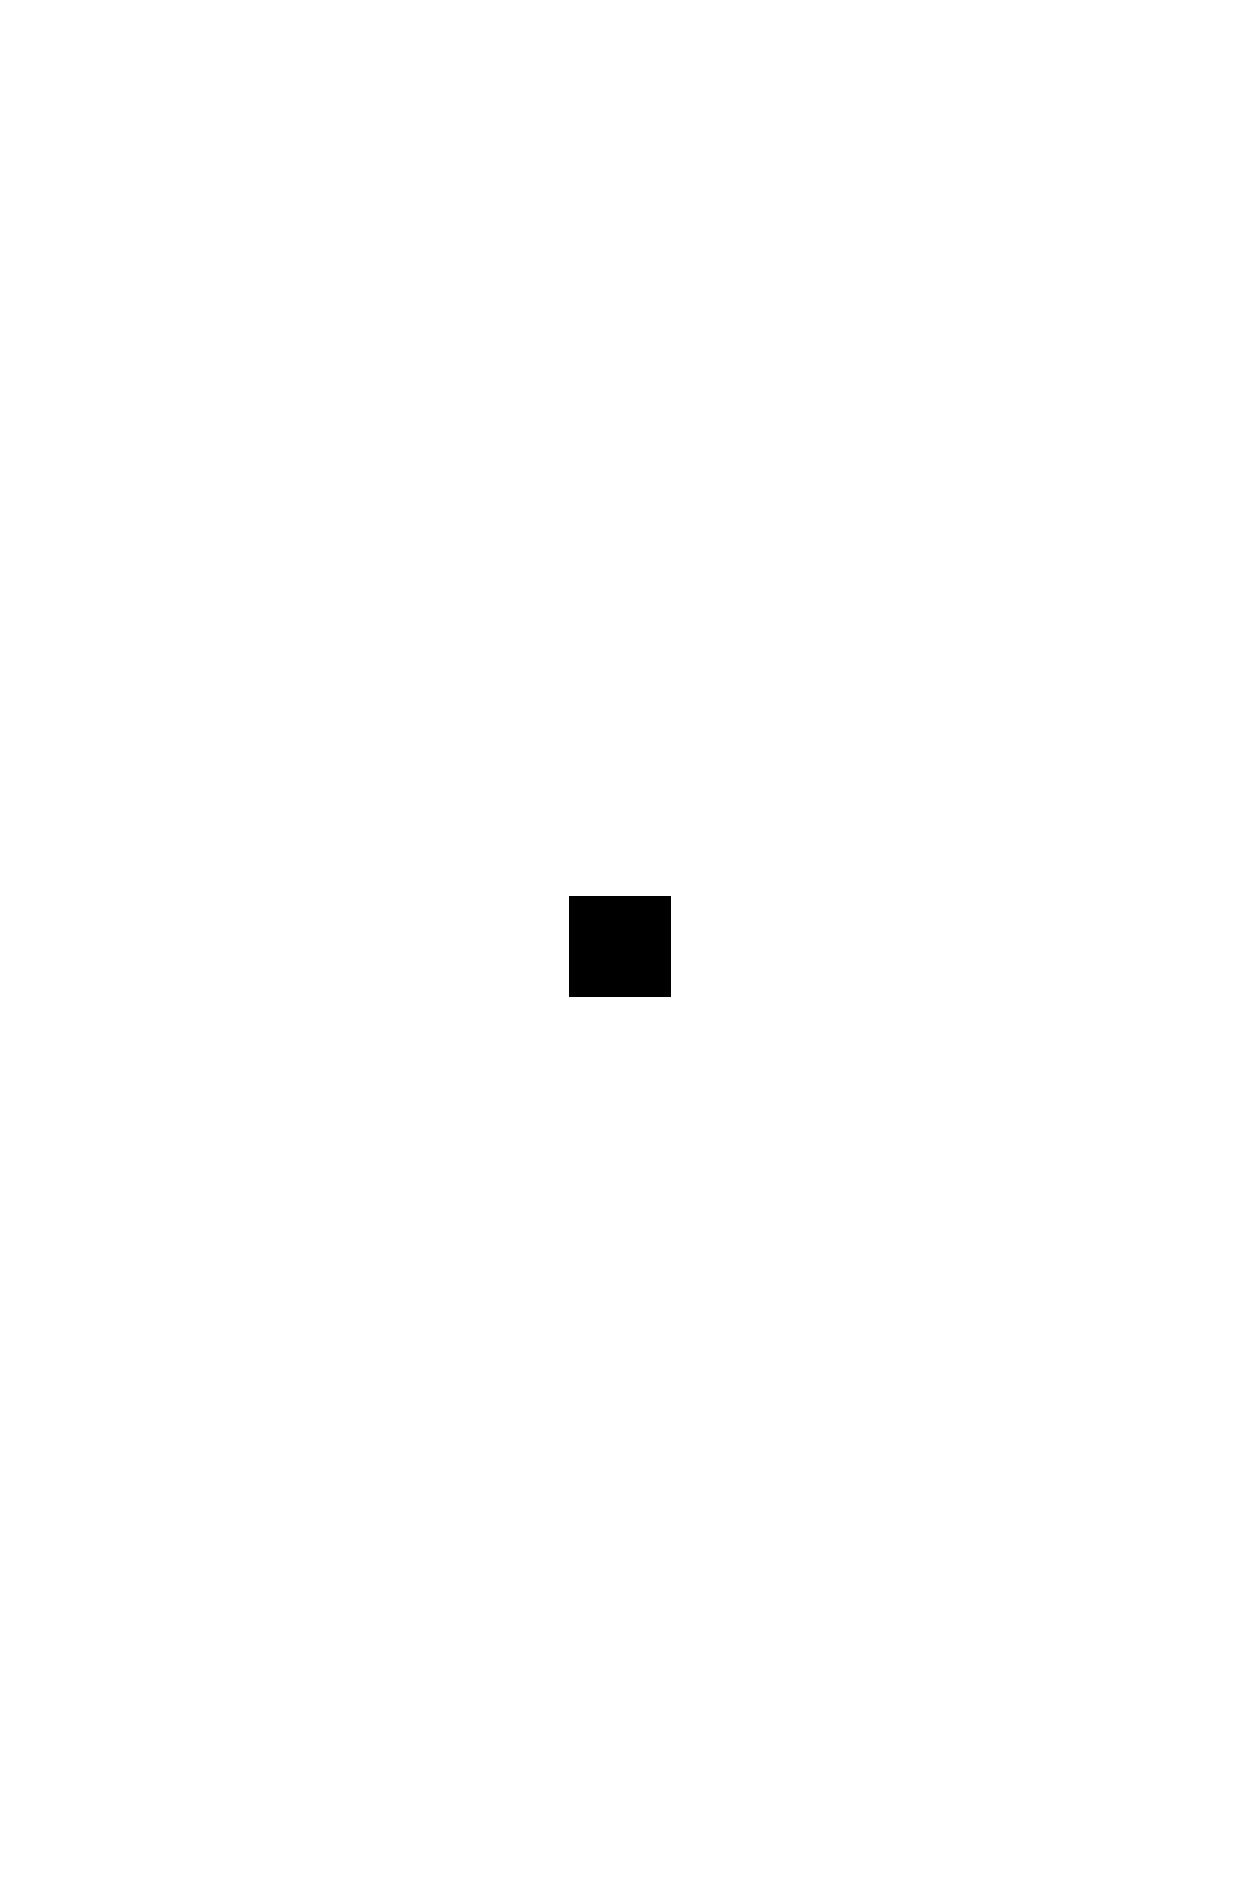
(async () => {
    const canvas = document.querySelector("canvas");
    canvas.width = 1239;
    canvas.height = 1890;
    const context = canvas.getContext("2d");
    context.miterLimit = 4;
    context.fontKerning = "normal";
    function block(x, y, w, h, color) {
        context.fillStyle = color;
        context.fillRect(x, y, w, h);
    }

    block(0, 0, 1239, 1890, "rgb(255, 255, 255)");
    block(569, 896, 102, 101, "rgb(0, 0, 0)");
})();
